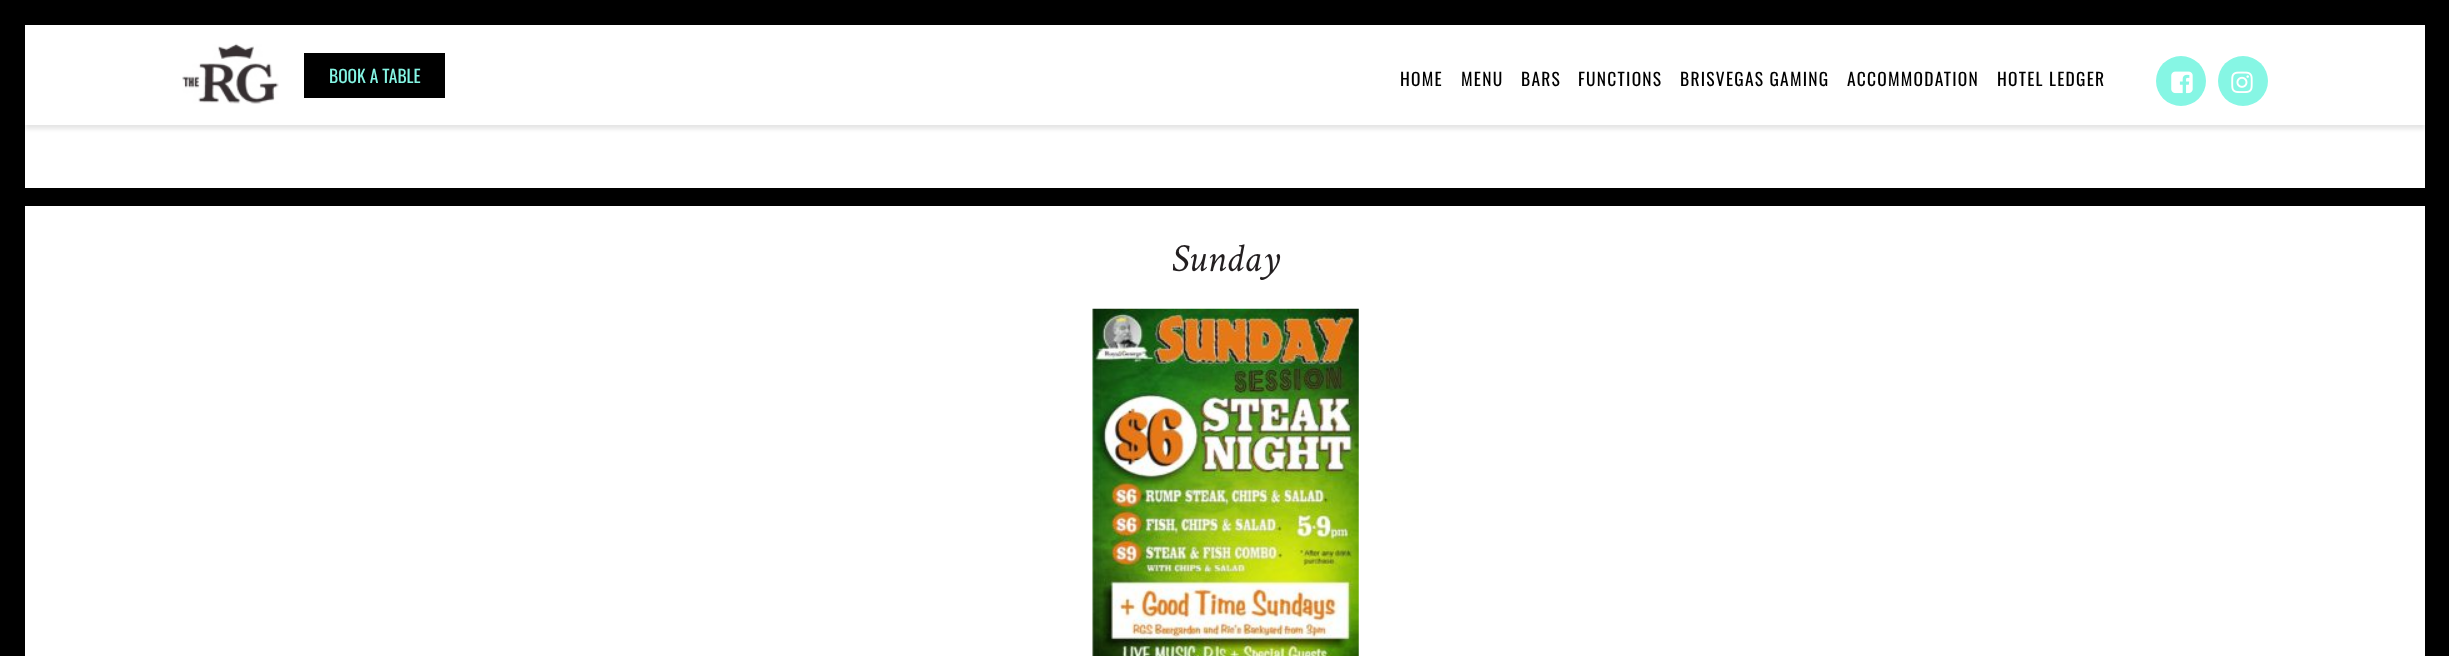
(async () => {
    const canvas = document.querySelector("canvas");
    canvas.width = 2449;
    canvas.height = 656;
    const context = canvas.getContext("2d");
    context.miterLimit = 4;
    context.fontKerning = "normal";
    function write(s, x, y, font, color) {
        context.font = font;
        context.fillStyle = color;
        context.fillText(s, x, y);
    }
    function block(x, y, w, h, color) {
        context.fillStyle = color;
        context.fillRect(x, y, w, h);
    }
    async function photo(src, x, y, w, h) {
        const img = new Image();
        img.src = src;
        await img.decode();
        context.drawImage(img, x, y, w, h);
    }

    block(0, 0, 2449, 656, "rgb(255, 255, 255)");
    block(2425, 0, 24, 656, "rgb(0, 0, 0)");
    block(0, 0, 25, 656, "rgb(0, 0, 0)");
    context.save();
    context.beginPath();
    context.moveTo(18, 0);
    context.lineTo(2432, 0);
    context.lineTo(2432, 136);
    context.lineTo(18, 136);
    context.closePath();
    context.moveTo(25, 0);
    context.lineTo(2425, 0);
    context.lineTo(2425, 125);
    context.lineTo(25, 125);
    context.closePath();
    context.clip("evenodd");
    context.fillStyle = "rgba(0, 0, 0, 0.1)";
    context.filter = "blur(2px)";
    context.beginPath();
    context.rect(25, 4, 2400, 125);
    context.fill();
    context.filter = "none";
    context.restore();
    block(25, 0, 2400, 25, "rgb(0, 0, 0)");
    await photo("media/1.png", 182, 43, 97, 61);
    block(304, 53, 141, 45, "rgb(0, 0, 0)");
    write("BOOK A TABLE", 329, 83, "17.5px Oswald", "rgb(133, 246, 228)");
    context.letterSpacing = "1.25px";
    write("HOME", 1400, 86, "17.5px Oswald", "rgb(0, 0, 0)");
    write("MENU", 1461, 86, "17.5px Oswald", "rgb(0, 0, 0)");
    write("BARS", 1521, 86, "17.5px Oswald", "rgb(0, 0, 0)");
    write("FUNCTIONS", 1578, 86, "17.5px Oswald", "rgb(0, 0, 0)");
    write("BRISVEGAS GAMING", 1680, 86, "17.5px Oswald", "rgb(0, 0, 0)");
    write("ACCOMMODATION", 1847, 86, "17.5px Oswald", "rgb(0, 0, 0)");
    write("HOTEL LEDGER", 1997, 86, "17.5px Oswald", "rgb(0, 0, 0)");
    context.fillStyle = "rgb(134, 246, 228)";
    context.beginPath();
    context.arc(2181, 81, 25, 0, Math.PI * 2);
    context.fill();
    await photo("media/2.png", 2171, 71, 22, 23);
    context.beginPath();
    context.arc(2243, 81, 25, 0, Math.PI * 2);
    context.fill();
    await photo("media/3.png", 2231, 71, 22, 22);
    block(25, 188, 2400, 18, "rgb(0, 0, 0)");
    context.letterSpacing = "0px";
    write("Sunday", 1171, 271, "italic 40px Crimson Text", "rgb(35, 31, 32)");
    await photo("media/4.png", 1092, 308, 267, 348);
})();
